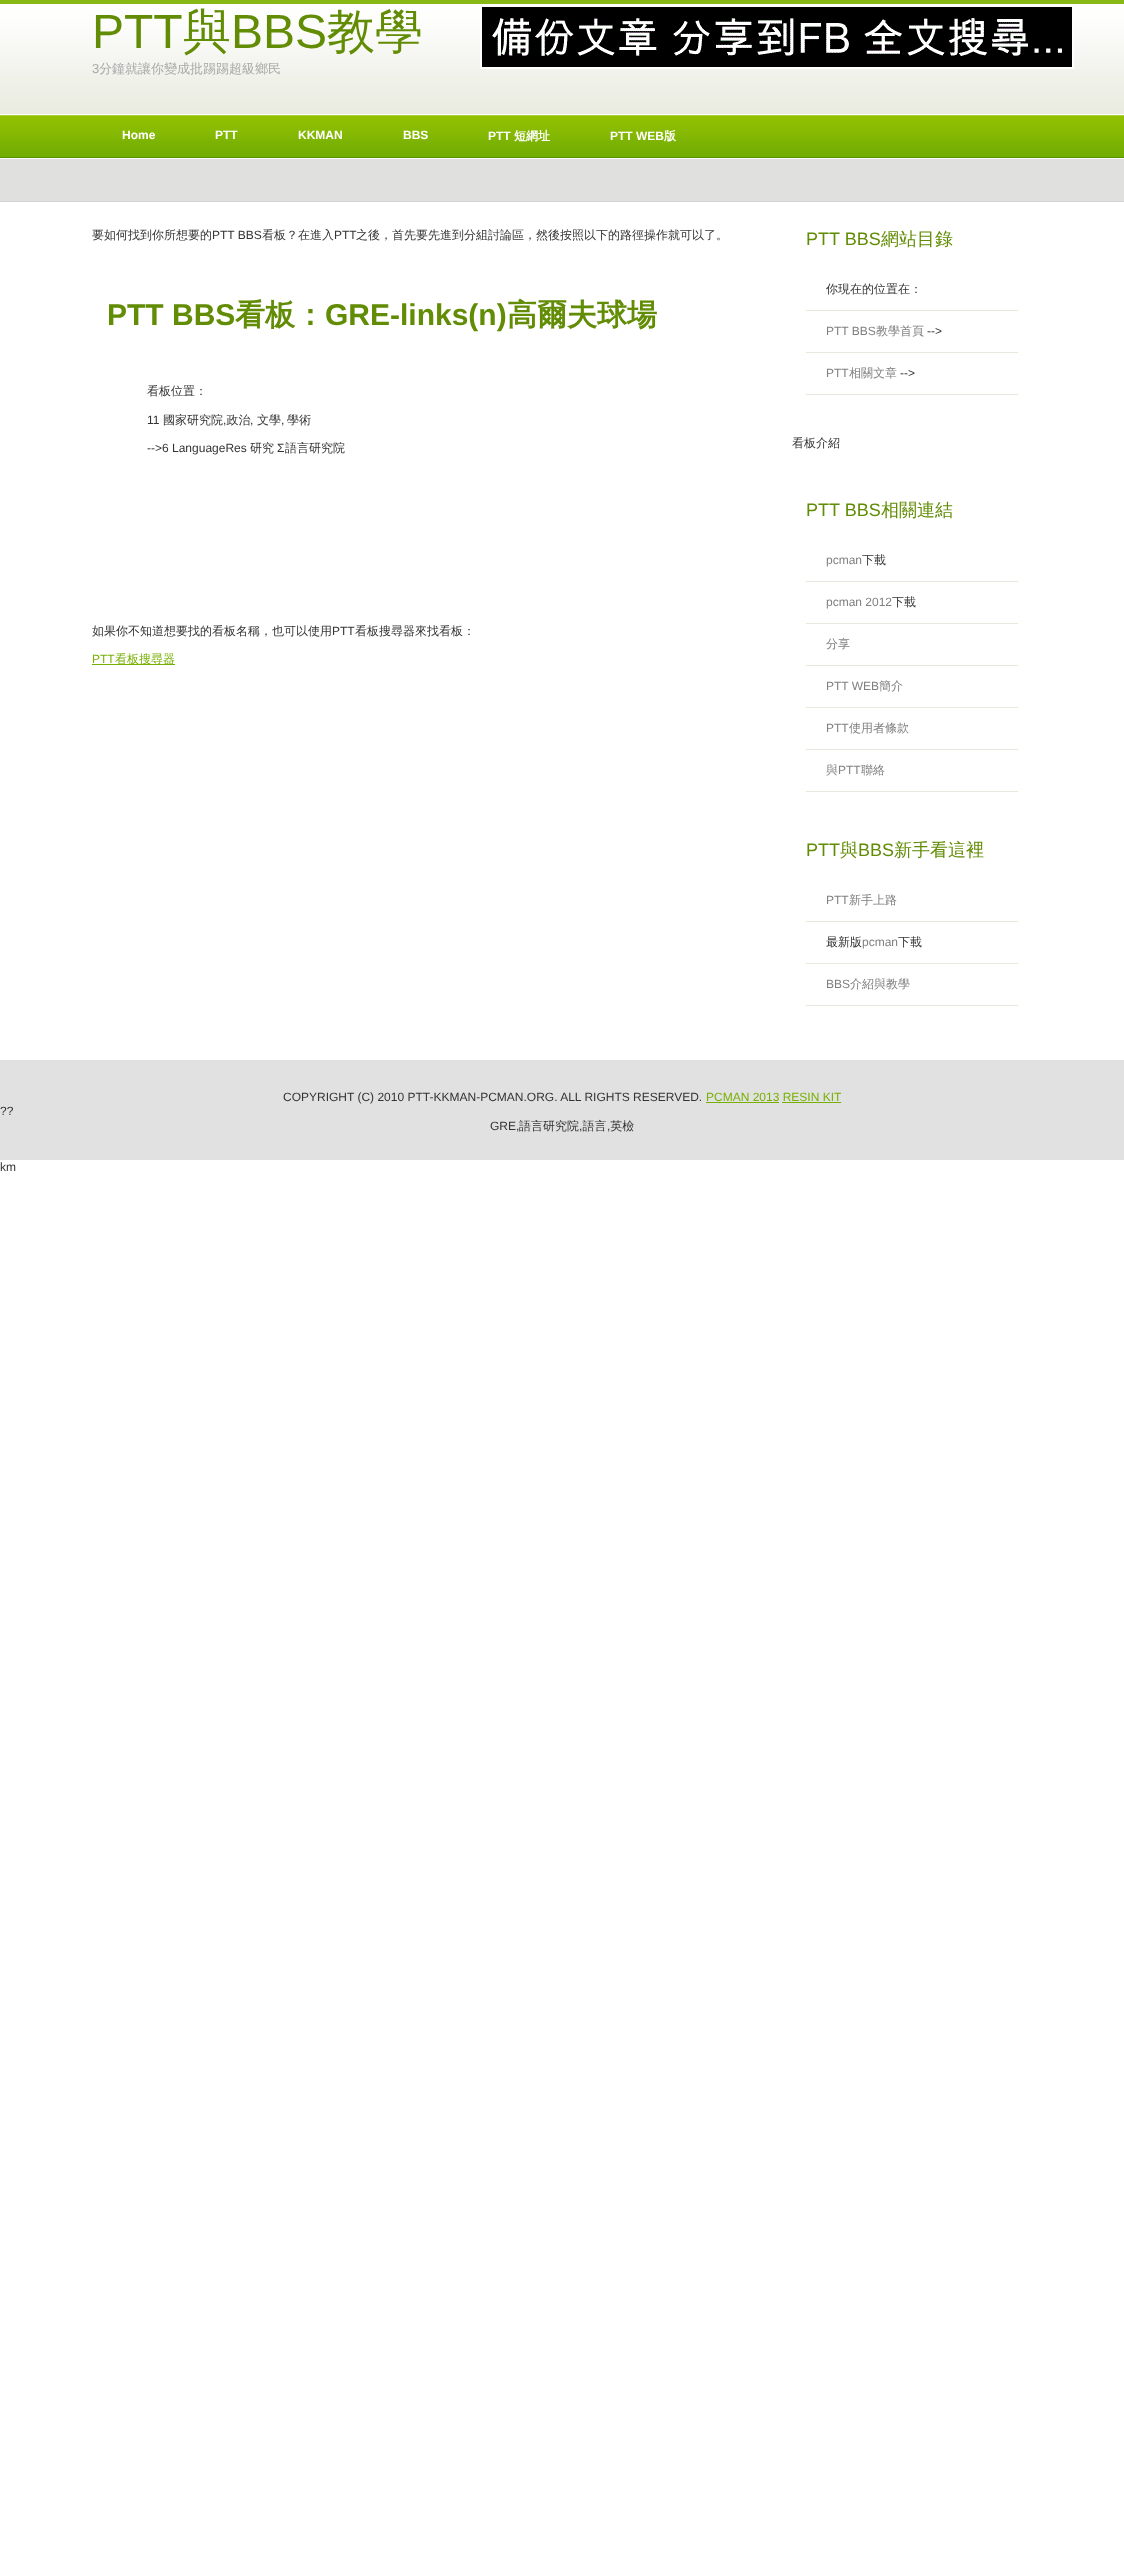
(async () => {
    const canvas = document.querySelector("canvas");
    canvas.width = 1124;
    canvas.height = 2562;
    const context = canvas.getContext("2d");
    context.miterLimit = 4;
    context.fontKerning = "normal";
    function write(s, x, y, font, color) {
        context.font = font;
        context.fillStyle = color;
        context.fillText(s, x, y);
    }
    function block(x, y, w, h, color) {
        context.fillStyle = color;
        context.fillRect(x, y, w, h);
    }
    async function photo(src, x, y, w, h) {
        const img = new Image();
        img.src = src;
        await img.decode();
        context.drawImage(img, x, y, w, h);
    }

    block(0, 0, 1124, 2562, "rgb(255, 255, 255)");
    await photo("media/1.png", 0, 0, 1124, 202);
    write("PTT", 92, 48, "48px Liberation Sans", "rgb(97, 140, 4)");
    write("與", 183, 48, "500 48px WenQuanYi Zen Hei", "rgb(97, 140, 4)");
    write("BBS", 231, 48, "48px Liberation Sans", "rgb(97, 140, 4)");
    write("教學", 327, 48, "500 48px WenQuanYi Zen Hei", "rgb(97, 140, 4)");
    await photo("media/2.png", 480, 7, 594, 62);
    write("3", 92, 73, "13px Liberation Sans", "rgb(168, 168, 168)");
    write("分鐘就讓你變成批踢踢超級鄉民", 99, 73, "500 13px WenQuanYi Zen Hei", "rgb(168, 168, 168)");
    write("Home", 122, 139, "bold 12px Liberation Sans", "rgb(255, 255, 255)");
    write("PTT", 215, 139, "bold 12px Liberation Sans", "rgb(255, 255, 255)");
    write("KKMAN", 298, 139, "bold 12px Liberation Sans", "rgb(255, 255, 255)");
    write("BBS", 403, 139, "bold 12px Liberation Sans", "rgb(255, 255, 255)");
    write("PTT", 488, 140, "bold 12px Liberation Sans", "rgb(255, 255, 255)");
    write("短網址", 514, 140, "bold 12px WenQuanYi Zen Hei", "rgb(255, 255, 255)");
    write("PTT WEB", 610, 140, "bold 12px Liberation Sans", "rgb(255, 255, 255)");
    write("版", 664, 140, "bold 12px WenQuanYi Zen Hei", "rgb(255, 255, 255)");
    write("要如何找到你所想要的", 92, 239, "500 12px WenQuanYi Zen Hei", "rgb(51, 51, 51)");
    write("PTT BBS", 212, 239, "12px Liberation Sans", "rgb(51, 51, 51)");
    write("看板？在進入", 262, 239, "500 12px WenQuanYi Zen Hei", "rgb(51, 51, 51)");
    write("PTT", 334, 239, "12px Liberation Sans", "rgb(51, 51, 51)");
    write("之後，首先要先進到分組討論區，然後按照以下的路徑操作就可以了。", 356, 239, "500 12px WenQuanYi Zen Hei", "rgb(51, 51, 51)");
    write("PTT BBS", 107, 325, "bold 30px Liberation Sans", "rgb(97, 140, 4)");
    write("看板：", 235, 325, "bold 30px WenQuanYi Zen Hei", "rgb(97, 140, 4)");
    write("GRE-links(n)", 325, 325, "bold 30px Liberation Sans", "rgb(97, 140, 4)");
    write("高爾夫球場", 507, 325, "bold 30px WenQuanYi Zen Hei", "rgb(97, 140, 4)");
    write("看板位置：", 147, 395, "500 12px WenQuanYi Zen Hei", "rgb(51, 51, 51)");
    write("11", 147, 424, "12px Liberation Sans", "rgb(51, 51, 51)");
    write("國家研究院 政治", 163, 424, "500 12px WenQuanYi Zen Hei", "rgb(51, 51, 51)");
    write("文學", 257, 424, "500 12px WenQuanYi Zen Hei", "rgb(51, 51, 51)");
    write("學術", 287, 424, "500 12px WenQuanYi Zen Hei", "rgb(51, 51, 51)");
    write(",", 223, 424, "12px Liberation Sans", "rgb(51, 51, 51)");
    write(",", 250, 424, "12px Liberation Sans", "rgb(51, 51, 51)");
    write(",", 281, 424, "12px Liberation Sans", "rgb(51, 51, 51)");
    write("-->6 LanguageRes", 147, 452, "12px Liberation Sans", "rgb(51, 51, 51)");
    write("研究", 250, 452, "500 12px WenQuanYi Zen Hei", "rgb(51, 51, 51)");
    write("Σ", 277, 452, "12px Liberation Sans", "rgb(51, 51, 51)");
    write("語言研究院", 285, 452, "500 12px WenQuanYi Zen Hei", "rgb(51, 51, 51)");
    write("如果你不知道想要找的看板名稱，也可以使用", 92, 635, "500 12px WenQuanYi Zen Hei", "rgb(51, 51, 51)");
    write("PTT", 332, 635, "12px Liberation Sans", "rgb(51, 51, 51)");
    write("看板搜尋器來找看板：", 355, 635, "500 12px WenQuanYi Zen Hei", "rgb(51, 51, 51)");
    write("PTT", 92, 663, "12px Liberation Sans", "rgb(119, 176, 3)");
    block(92, 664, 83, 1, "rgb(119, 176, 3)");
    write("看板搜尋器", 115, 663, "500 12px WenQuanYi Zen Hei", "rgb(119, 176, 3)");
    write("PTT BBS", 806, 245, "18px Liberation Sans", "rgb(97, 140, 4)");
    write("網站目錄", 881, 245, "500 18px WenQuanYi Zen Hei", "rgb(97, 140, 4)");
    block(806, 310, 212, 1, "rgb(233, 232, 221)");
    write("你現在的位置在：", 826, 293, "500 12px WenQuanYi Zen Hei", "rgb(51, 51, 51)");
    block(806, 352, 212, 1, "rgb(233, 232, 221)");
    write("PTT BBS", 826, 335, "12px Liberation Sans", "rgb(128, 128, 128)");
    write("教學首頁", 876, 335, "500 12px WenQuanYi Zen Hei", "rgb(128, 128, 128)");
    write("-->", 927, 335, "12px Liberation Sans", "rgb(51, 51, 51)");
    block(806, 394, 212, 1, "rgb(233, 232, 221)");
    write("PTT", 826, 377, "12px Liberation Sans", "rgb(128, 128, 128)");
    write("相關文章", 849, 377, "500 12px WenQuanYi Zen Hei", "rgb(128, 128, 128)");
    write("-->", 900, 377, "12px Liberation Sans", "rgb(51, 51, 51)");
    write("看板介紹", 792, 447, "500 12px WenQuanYi Zen Hei", "rgb(51, 51, 51)");
    write("PTT BBS", 806, 516, "18px Liberation Sans", "rgb(97, 140, 4)");
    write("相關連結", 881, 516, "500 18px WenQuanYi Zen Hei", "rgb(97, 140, 4)");
    block(806, 581, 212, 1, "rgb(233, 232, 221)");
    write("pcman", 826, 564, "12px Liberation Sans", "rgb(128, 128, 128)");
    write("下載", 862, 564, "500 12px WenQuanYi Zen Hei", "rgb(51, 51, 51)");
    block(806, 623, 212, 1, "rgb(233, 232, 221)");
    write("pcman 2012", 826, 606, "12px Liberation Sans", "rgb(128, 128, 128)");
    write("下載", 892, 606, "500 12px WenQuanYi Zen Hei", "rgb(51, 51, 51)");
    block(806, 665, 212, 1, "rgb(233, 232, 221)");
    write("分享", 826, 648, "500 12px WenQuanYi Zen Hei", "rgb(128, 128, 128)");
    block(806, 707, 212, 1, "rgb(233, 232, 221)");
    write("PTT WEB", 826, 690, "12px Liberation Sans", "rgb(128, 128, 128)");
    write("簡介", 879, 690, "500 12px WenQuanYi Zen Hei", "rgb(128, 128, 128)");
    block(806, 749, 212, 1, "rgb(233, 232, 221)");
    write("PTT", 826, 732, "12px Liberation Sans", "rgb(128, 128, 128)");
    write("使用者條款", 849, 732, "500 12px WenQuanYi Zen Hei", "rgb(128, 128, 128)");
    block(806, 791, 212, 1, "rgb(233, 232, 221)");
    write("與", 826, 774, "500 12px WenQuanYi Zen Hei", "rgb(128, 128, 128)");
    write("PTT", 838, 774, "12px Liberation Sans", "rgb(128, 128, 128)");
    write("聯絡", 861, 774, "500 12px WenQuanYi Zen Hei", "rgb(128, 128, 128)");
    write("PTT", 806, 856, "18px Liberation Sans", "rgb(97, 140, 4)");
    write("與", 840, 856, "500 18px WenQuanYi Zen Hei", "rgb(97, 140, 4)");
    write("BBS", 858, 856, "18px Liberation Sans", "rgb(97, 140, 4)");
    write("新手看這裡", 894, 856, "500 18px WenQuanYi Zen Hei", "rgb(97, 140, 4)");
    block(806, 921, 212, 1, "rgb(233, 232, 221)");
    write("PTT", 826, 904, "12px Liberation Sans", "rgb(128, 128, 128)");
    write("新手上路", 849, 904, "500 12px WenQuanYi Zen Hei", "rgb(128, 128, 128)");
    block(806, 963, 212, 1, "rgb(233, 232, 221)");
    write("最新版", 826, 946, "500 12px WenQuanYi Zen Hei", "rgb(51, 51, 51)");
    write("pcman", 862, 946, "12px Liberation Sans", "rgb(128, 128, 128)");
    write("下載", 898, 946, "500 12px WenQuanYi Zen Hei", "rgb(51, 51, 51)");
    block(806, 1005, 212, 1, "rgb(233, 232, 221)");
    write("BBS", 826, 988, "12px Liberation Sans", "rgb(128, 128, 128)");
    write("介紹與教學", 850, 988, "500 12px WenQuanYi Zen Hei", "rgb(128, 128, 128)");
    block(0, 1060, 1124, 100, "rgb(225, 225, 225)");
    write("COPYRIGHT (C) 2010 PTT-KKMAN-PCMAN.ORG. ALL RIGHTS RESERVED.", 283, 1101, "12px Liberation Sans", "rgb(51, 51, 51)");
    write("PCMAN 2013 RESIN KIT", 706, 1101, "12px Liberation Sans", "rgb(119, 176, 3)");
    block(706, 1102, 73, 1, "rgb(119, 176, 3)");
    block(782, 1102, 59, 1, "rgb(119, 176, 3)");
    write("??", 0, 1115, "12px Liberation Sans", "rgb(51, 51, 51)");
    write("GRE,", 490, 1130, "12px Liberation Sans", "rgb(51, 51, 51)");
    write("語言研究院 語言 英檢", 519, 1130, "500 12px WenQuanYi Zen Hei", "rgb(51, 51, 51)");
    write(",", 579, 1130, "12px Liberation Sans", "rgb(51, 51, 51)");
    write(",", 607, 1130, "12px Liberation Sans", "rgb(51, 51, 51)");
    write("km", 0, 1171, "12px Liberation Sans", "rgb(51, 51, 51)");
})();
